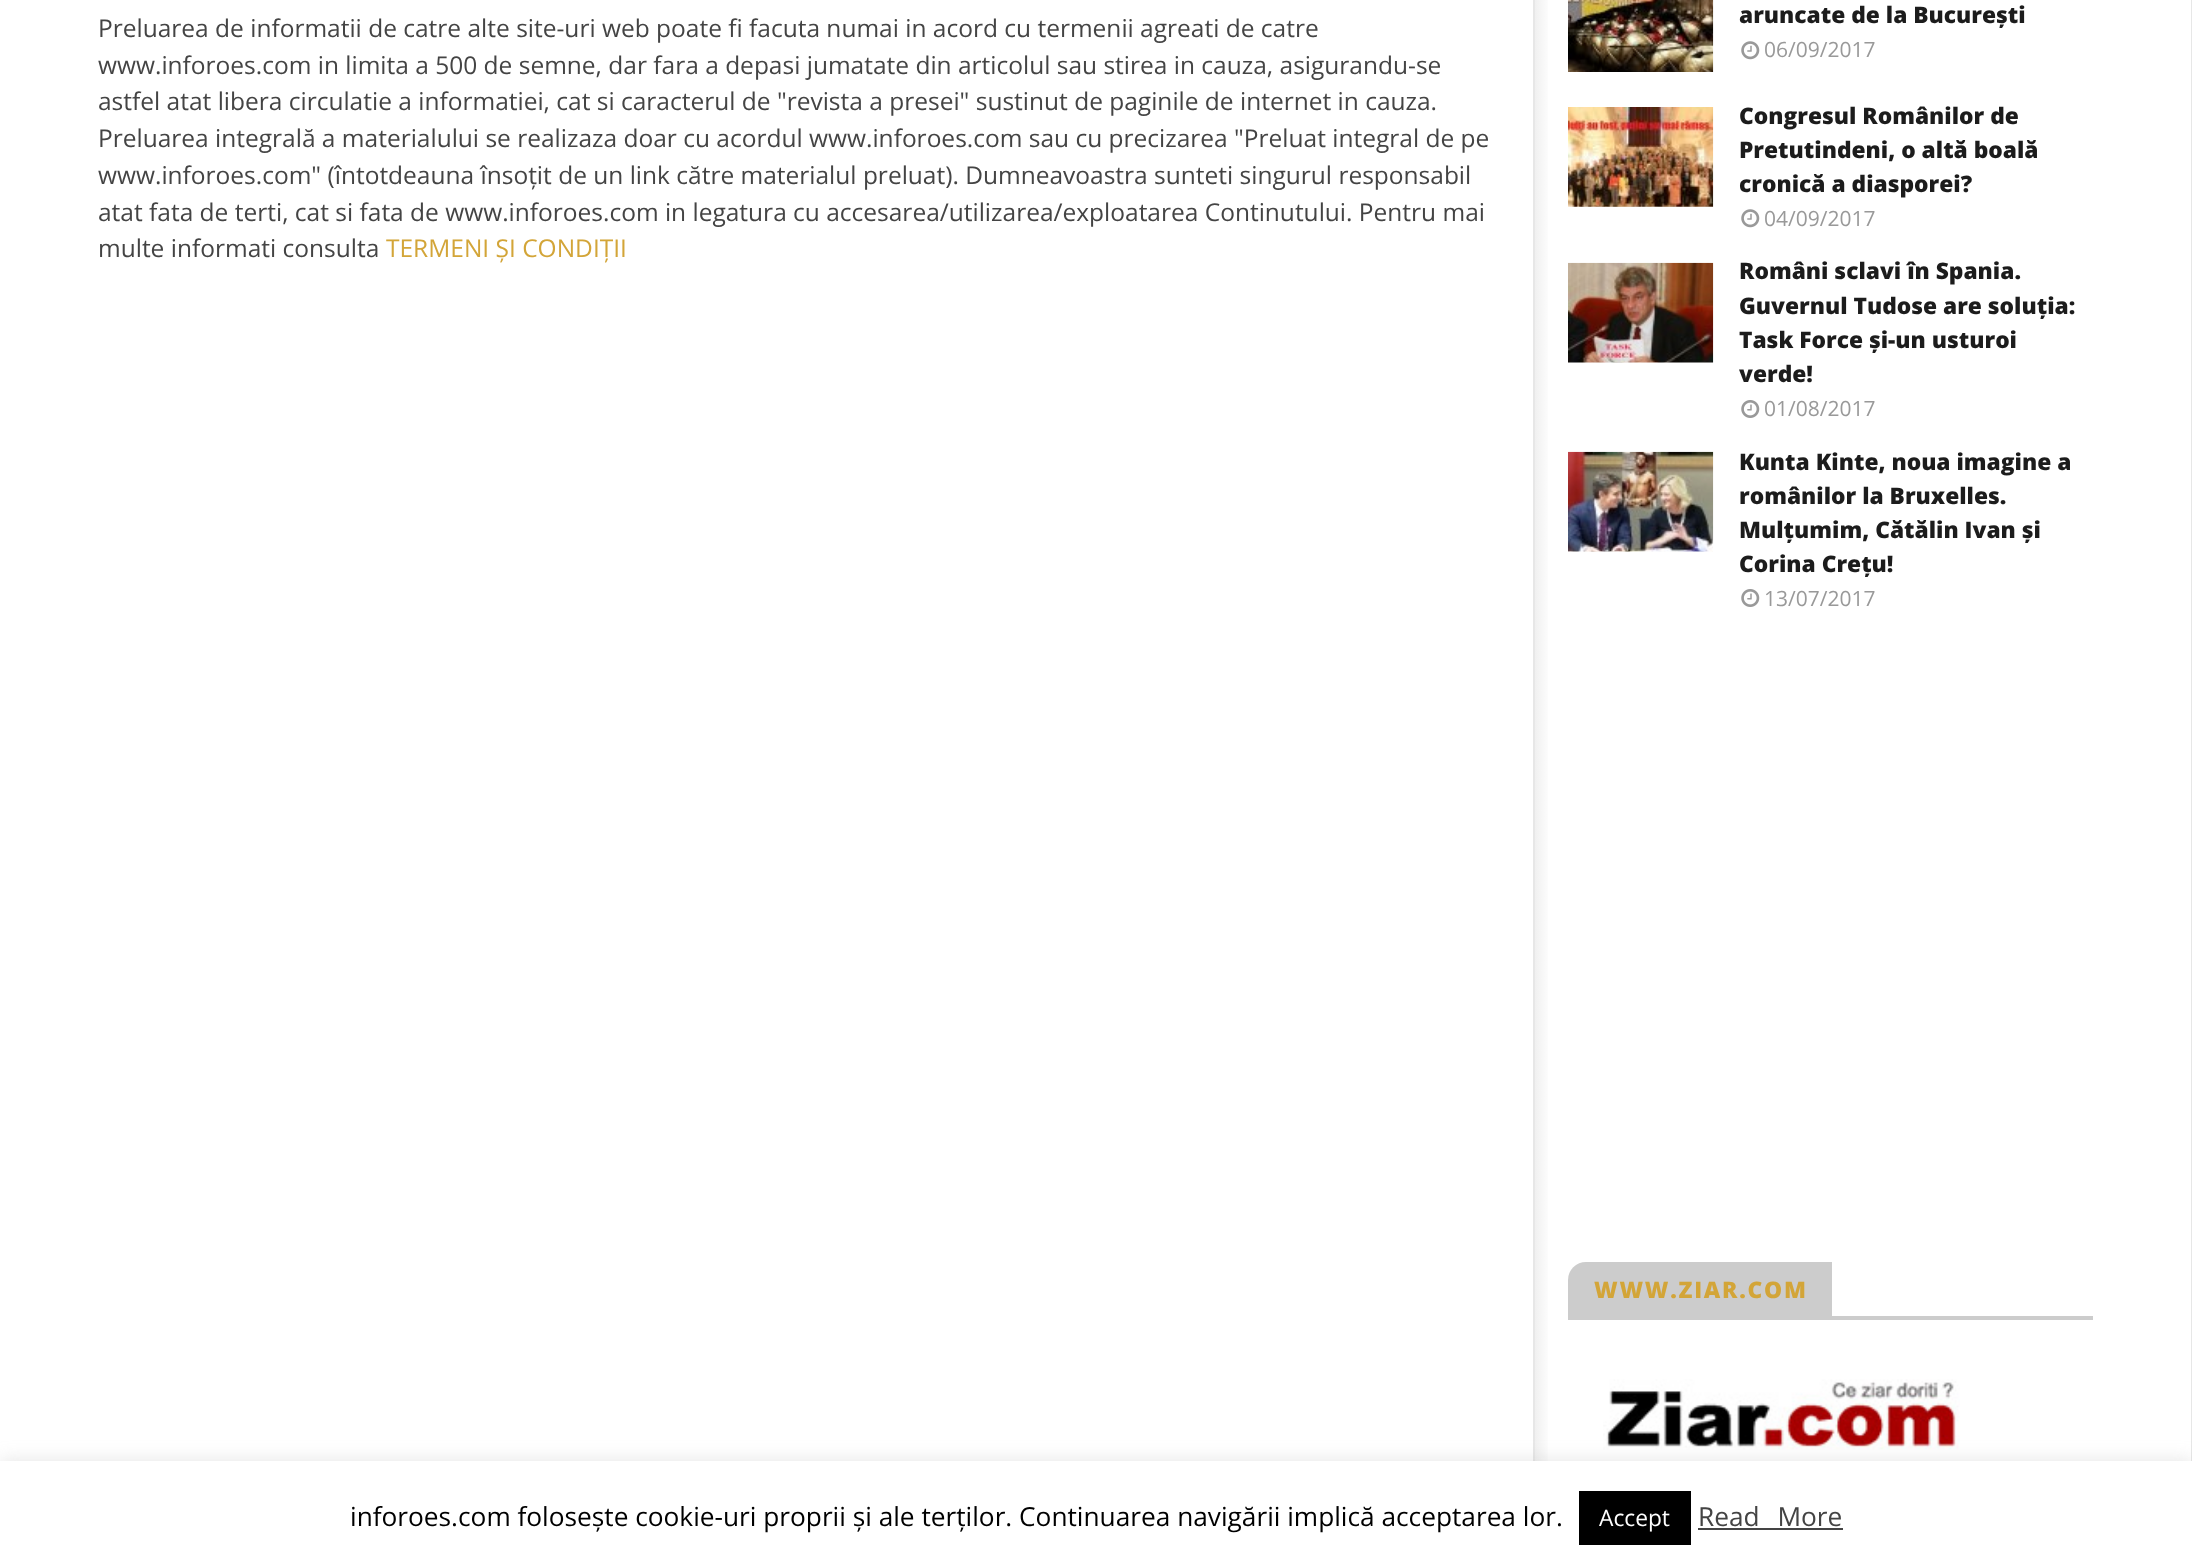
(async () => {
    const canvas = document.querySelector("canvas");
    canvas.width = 2192;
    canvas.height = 1565;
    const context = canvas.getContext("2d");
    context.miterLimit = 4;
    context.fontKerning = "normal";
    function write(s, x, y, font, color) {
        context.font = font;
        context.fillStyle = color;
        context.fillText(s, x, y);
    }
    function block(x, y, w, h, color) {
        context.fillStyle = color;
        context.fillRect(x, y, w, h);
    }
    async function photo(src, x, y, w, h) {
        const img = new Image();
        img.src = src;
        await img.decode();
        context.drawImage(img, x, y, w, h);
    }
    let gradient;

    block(0, 0, 2192, 1565, "rgb(231, 231, 231)");
    block(0, 0, 2191, 1461, "rgb(255, 255, 255)");
    write("Preluarea de informatii de catre alte site-uri web poate fi facuta numai in acord cu termenii agreati de catre", 98, 37, "24.5px Open Sans", "rgb(68, 68, 68)");
    write("www.inforoes.com in limita a 500 de semne, dar fara a depasi jumatate din articolul sau stirea in cauza, asigurandu-se", 98, 74, "24.5px Open Sans", "rgb(68, 68, 68)");
    write("astfel atat libera circulatie a informatiei, cat si caracterul de \"revista a presei\" sustinut de paginile de internet in cauza.", 98, 110, "24.5px Open Sans", "rgb(68, 68, 68)");
    write("Preluarea integrală a materialului se realizaza doar cu acordul www.inforoes.com sau cu precizarea \"Preluat integral de pe", 98, 147, "24.5px Open Sans", "rgb(68, 68, 68)");
    write("www.inforoes.com\" (întotdeauna însoțit de un link către materialul preluat). Dumneavoastra sunteti singurul responsabil", 98, 184, "24.5px Open Sans", "rgb(68, 68, 68)");
    write("atat fata de terti, cat si fata de www.inforoes.com in legatura cu accesarea/utilizarea/exploatarea Continutului. Pentru mai", 98, 221, "24.5px Open Sans", "rgb(68, 68, 68)");
    write("multe informati consulta", 98, 257, "24.5px Open Sans", "rgb(68, 68, 68)");
    write("TERMENI ȘI CONDIȚII", 386, 257, "24.5px Open Sans", "rgb(211, 165, 56)");
    gradient = context.createLinearGradient(1535, 332, 1551, 332);
    gradient.addColorStop(0, "rgb(240, 240, 240)");
    gradient.addColorStop(1, "rgb(255, 255, 255)");
    context.fillStyle = gradient;
    context.fillRect(1535, 0, 13, 1461);
    block(1533, 0, 2, 1461, "rgb(231, 231, 231)");
    await photo("media/1.png", 1568, 0, 146, 72);
    write("aruncate de la București", 1739, 23, "800 22.75px Open Sans", "rgb(28, 28, 28)");
    await photo("media/2.png", 1741, 41, 19, 19);
    write("06/09/2017", 1764, 57, "21px Open Sans", "rgb(153, 153, 153)");
    await photo("media/3.png", 1568, 107, 146, 100);
    write("Congresul Românilor de", 1739, 124, "800 22.75px Open Sans", "rgb(28, 28, 28)");
    write("Pretutindeni, o altă boală", 1739, 158, "800 22.75px Open Sans", "rgb(28, 28, 28)");
    write("cronică a diasporei?", 1739, 192, "800 22.75px Open Sans", "rgb(28, 28, 28)");
    await photo("media/4.png", 1741, 209, 19, 19);
    write("04/09/2017", 1764, 226, "21px Open Sans", "rgb(153, 153, 153)");
    await photo("media/5.png", 1568, 262, 146, 101);
    write("Români sclavi în Spania.", 1739, 279, "800 22.75px Open Sans", "rgb(28, 28, 28)");
    write("Guvernul Tudose are soluția:", 1739, 314, "800 22.75px Open Sans", "rgb(28, 28, 28)");
    write("Task Force și-un usturoi", 1739, 348, "800 22.75px Open Sans", "rgb(28, 28, 28)");
    write("verde!", 1739, 382, "800 22.75px Open Sans", "rgb(28, 28, 28)");
    await photo("media/6.png", 1741, 400, 19, 18);
    write("01/08/2017", 1764, 416, "21px Open Sans", "rgb(153, 153, 153)");
    await photo("media/7.png", 1568, 451, 146, 101);
    write("Kunta Kinte, noua imagine a", 1739, 470, "800 22.75px Open Sans", "rgb(28, 28, 28)");
    write("românilor la Bruxelles.", 1739, 504, "800 22.75px Open Sans", "rgb(28, 28, 28)");
    write("Mulțumim, Cătălin Ivan și", 1739, 538, "800 22.75px Open Sans", "rgb(28, 28, 28)");
    write("Corina Crețu!", 1739, 572, "800 22.75px Open Sans", "rgb(28, 28, 28)");
    await photo("media/6.png", 1741, 589, 19, 18);
    write("13/07/2017", 1764, 606, "21px Open Sans", "rgb(153, 153, 153)");
    context.fillStyle = "rgb(204, 204, 204)";
    context.beginPath();
    context.roundRect(1568, 1262, 264, 58, [18, 0, 0, 0]);
    context.fill();
    context.letterSpacing = "1.75px";
    write("WWW.ZIAR.COM", 1594, 1298, "800 22.75px Open Sans", "rgb(211, 165, 56)");
    block(1832, 1316, 261, 4, "rgb(204, 204, 204)");
    await photo("media/8.png", 1603, 1379, 357, 71);
    context.fillStyle = "rgba(172, 171, 171, 0.3)";
    context.filter = "blur(9px)";
    context.beginPath();
    context.rect(0, 1460, 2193, 105);
    context.fill();
    context.filter = "none";
    block(0, 1461, 2192, 104, "rgb(255, 255, 255)");
    context.letterSpacing = "0px";
    write("inforoes.com folosește cookie-uri proprii și ale terților. Continuarea navigării implică acceptarea lor.", 350, 1526, "26.25px Open Sans", "rgb(0, 0, 0)");
    block(1579, 1491, 112, 54, "rgb(0, 0, 0)");
    write("Accept", 1599, 1526, "22.75px Open Sans", "rgb(255, 255, 255)");
    context.wordSpacing = "11px";
    write("Read More", 1698, 1526, "26.25px Open Sans", "rgb(68, 68, 68)");
    block(1698, 1528, 145, 2, "rgb(68, 68, 68)");
})();
